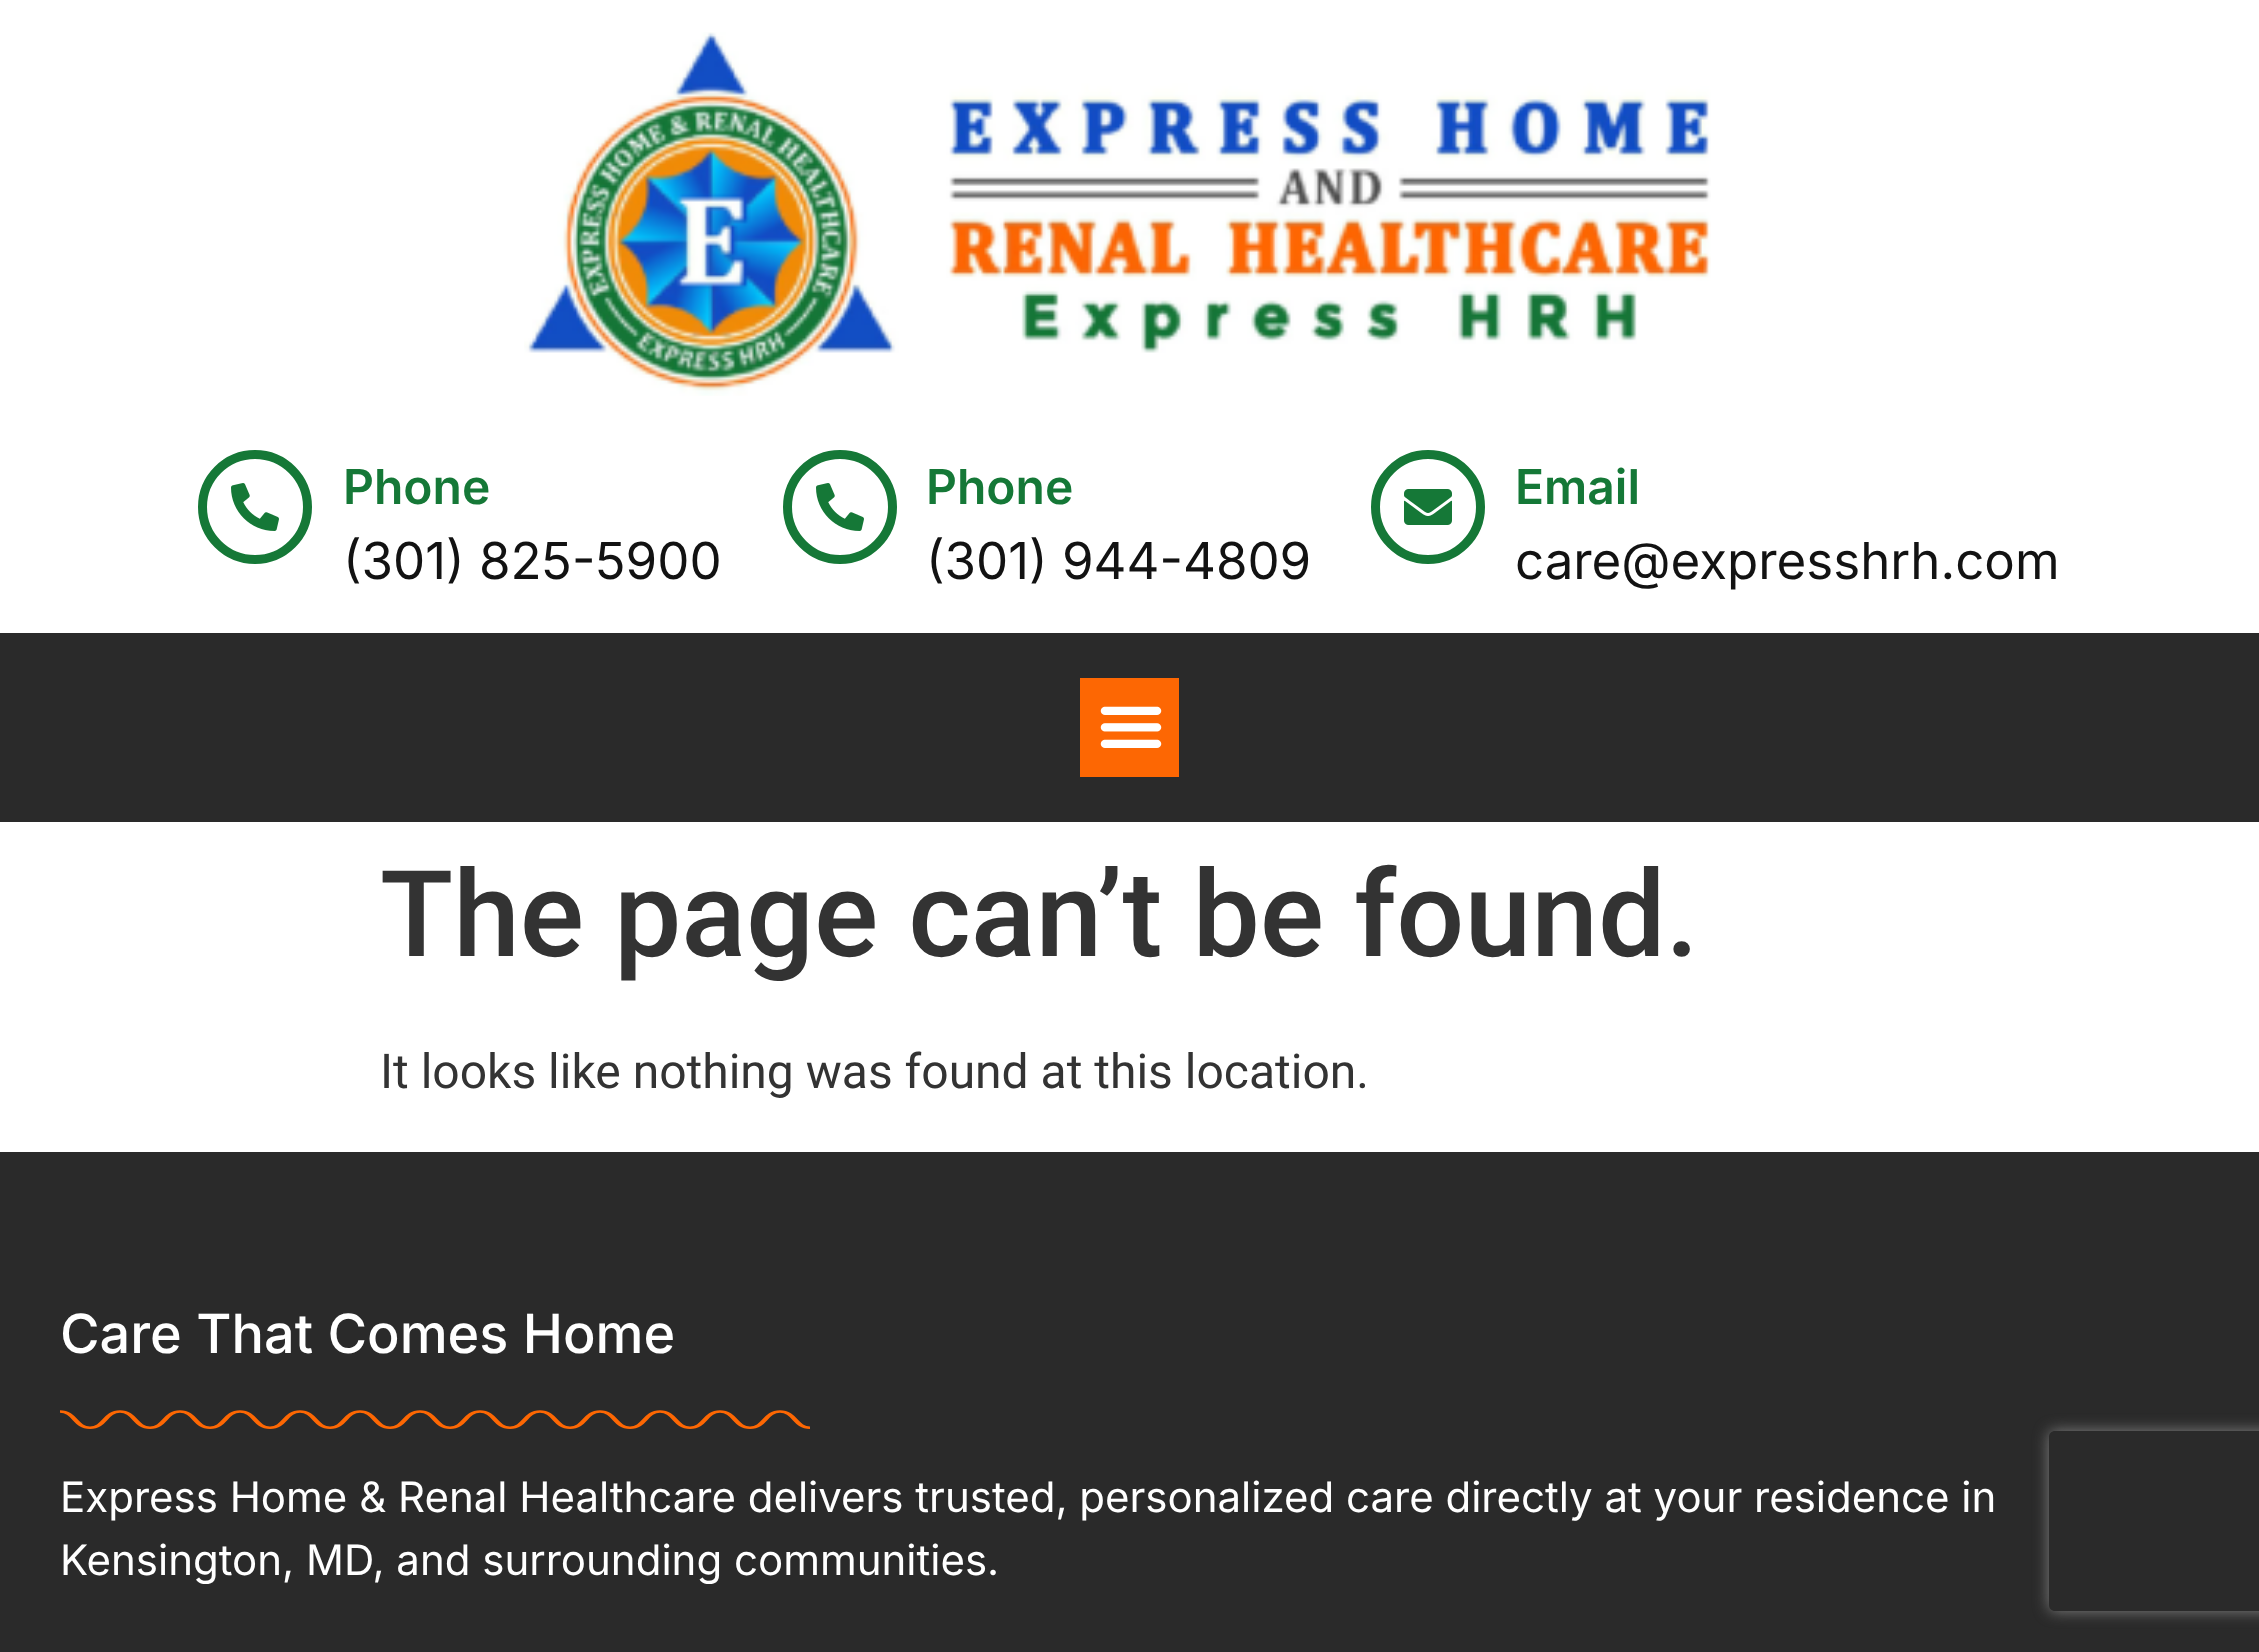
(async () => {
    const canvas = document.querySelector("canvas");
    canvas.width = 2259;
    canvas.height = 1652;
    const context = canvas.getContext("2d");
    context.miterLimit = 4;
    context.fontKerning = "normal";
    function write(s, x, y, font, color) {
        context.font = font;
        context.fillStyle = color;
        context.fillText(s, x, y);
    }
    function block(x, y, w, h, color) {
        context.fillStyle = color;
        context.fillRect(x, y, w, h);
    }
    async function photo(src, x, y, w, h) {
        const img = new Image();
        img.src = src;
        await img.decode();
        context.drawImage(img, x, y, w, h);
    }

    block(0, 0, 2259, 1652, "rgb(255, 255, 255)");
    await photo("media/1.png", 524, 32, 1187, 364);
    context.beginPath();
    context.arc(255, 507, 52.5, 0, Math.PI * 2);
    context.strokeStyle = "rgb(21, 120, 55)";
    context.lineWidth = 9;
    context.stroke();
    await photo("media/2.png", 231, 483, 48, 48);
    write("Phone", 343, 504, "600 48px Inter", "rgb(21, 120, 55)");
    write("(301) 825-5900", 343, 579, "51px Inter", "rgb(18, 18, 18)");
    context.beginPath();
    context.arc(840, 507, 52.5, 0, Math.PI * 2);
    context.stroke();
    await photo("media/2.png", 816, 483, 48, 48);
    write("Phone", 926, 504, "600 48px Inter", "rgb(21, 120, 55)");
    write("(301) 944-4809", 926, 579, "51px Inter", "rgb(18, 18, 18)");
    context.beginPath();
    context.arc(1428, 507, 52.5, 0, Math.PI * 2);
    context.stroke();
    await photo("media/3.png", 1404, 489, 48, 36);
    write("Email", 1515, 504, "600 48px Inter", "rgb(21, 120, 55)");
    write("care@expresshrh.com", 1515, 579, "51px Inter", "rgb(18, 18, 18)");
    block(0, 633, 2259, 189, "rgb(42, 42, 42)");
    block(1080, 678, 99, 99, "rgb(253, 103, 3)");
    await photo("media/4.png", 1100, 706, 62, 42);
    write("The page can’t be found.", 380, 956, "500 120px Roboto", "rgb(51, 51, 51)");
    write("It looks like nothing was found at this location.", 380, 1088, "48px Roboto", "rgb(51, 51, 51)");
    block(0, 1152, 2259, 500, "rgb(42, 42, 42)");
    write("Care That Comes Home", 60, 1353, "500 54px Inter", "rgb(255, 255, 255)");
    await photo("media/5.png", 60, 1410, 750, 19);
    write("Express Home & Renal Healthcare delivers trusted, personalized care directly at your residence in", 60, 1512, "42px Inter", "rgb(255, 255, 255)");
    write("Kensington, MD, and surrounding communities.", 60, 1575, "42px Inter", "rgb(255, 255, 255)");
    context.save();
    context.beginPath();
    context.moveTo(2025, 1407);
    context.lineTo(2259, 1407);
    context.lineTo(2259, 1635);
    context.lineTo(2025, 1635);
    context.closePath();
    context.moveTo(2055, 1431);
    context.lineTo(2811, 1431);
    context.bezierCurveTo(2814.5, 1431, 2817, 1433.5, 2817, 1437);
    context.lineTo(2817, 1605);
    context.bezierCurveTo(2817, 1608.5, 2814.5, 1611, 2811, 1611);
    context.lineTo(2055, 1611);
    context.bezierCurveTo(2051.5, 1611, 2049, 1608.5, 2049, 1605);
    context.lineTo(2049, 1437);
    context.bezierCurveTo(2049, 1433.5, 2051.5, 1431, 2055, 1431);
    context.closePath();
    context.clip("evenodd");
    context.fillStyle = "rgb(128, 128, 128)";
    context.filter = "blur(7.5px)";
    context.beginPath();
    context.roundRect(2049, 1431, 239, 180, 6);
    context.fill();
    context.filter = "none";
    context.restore();
})();
